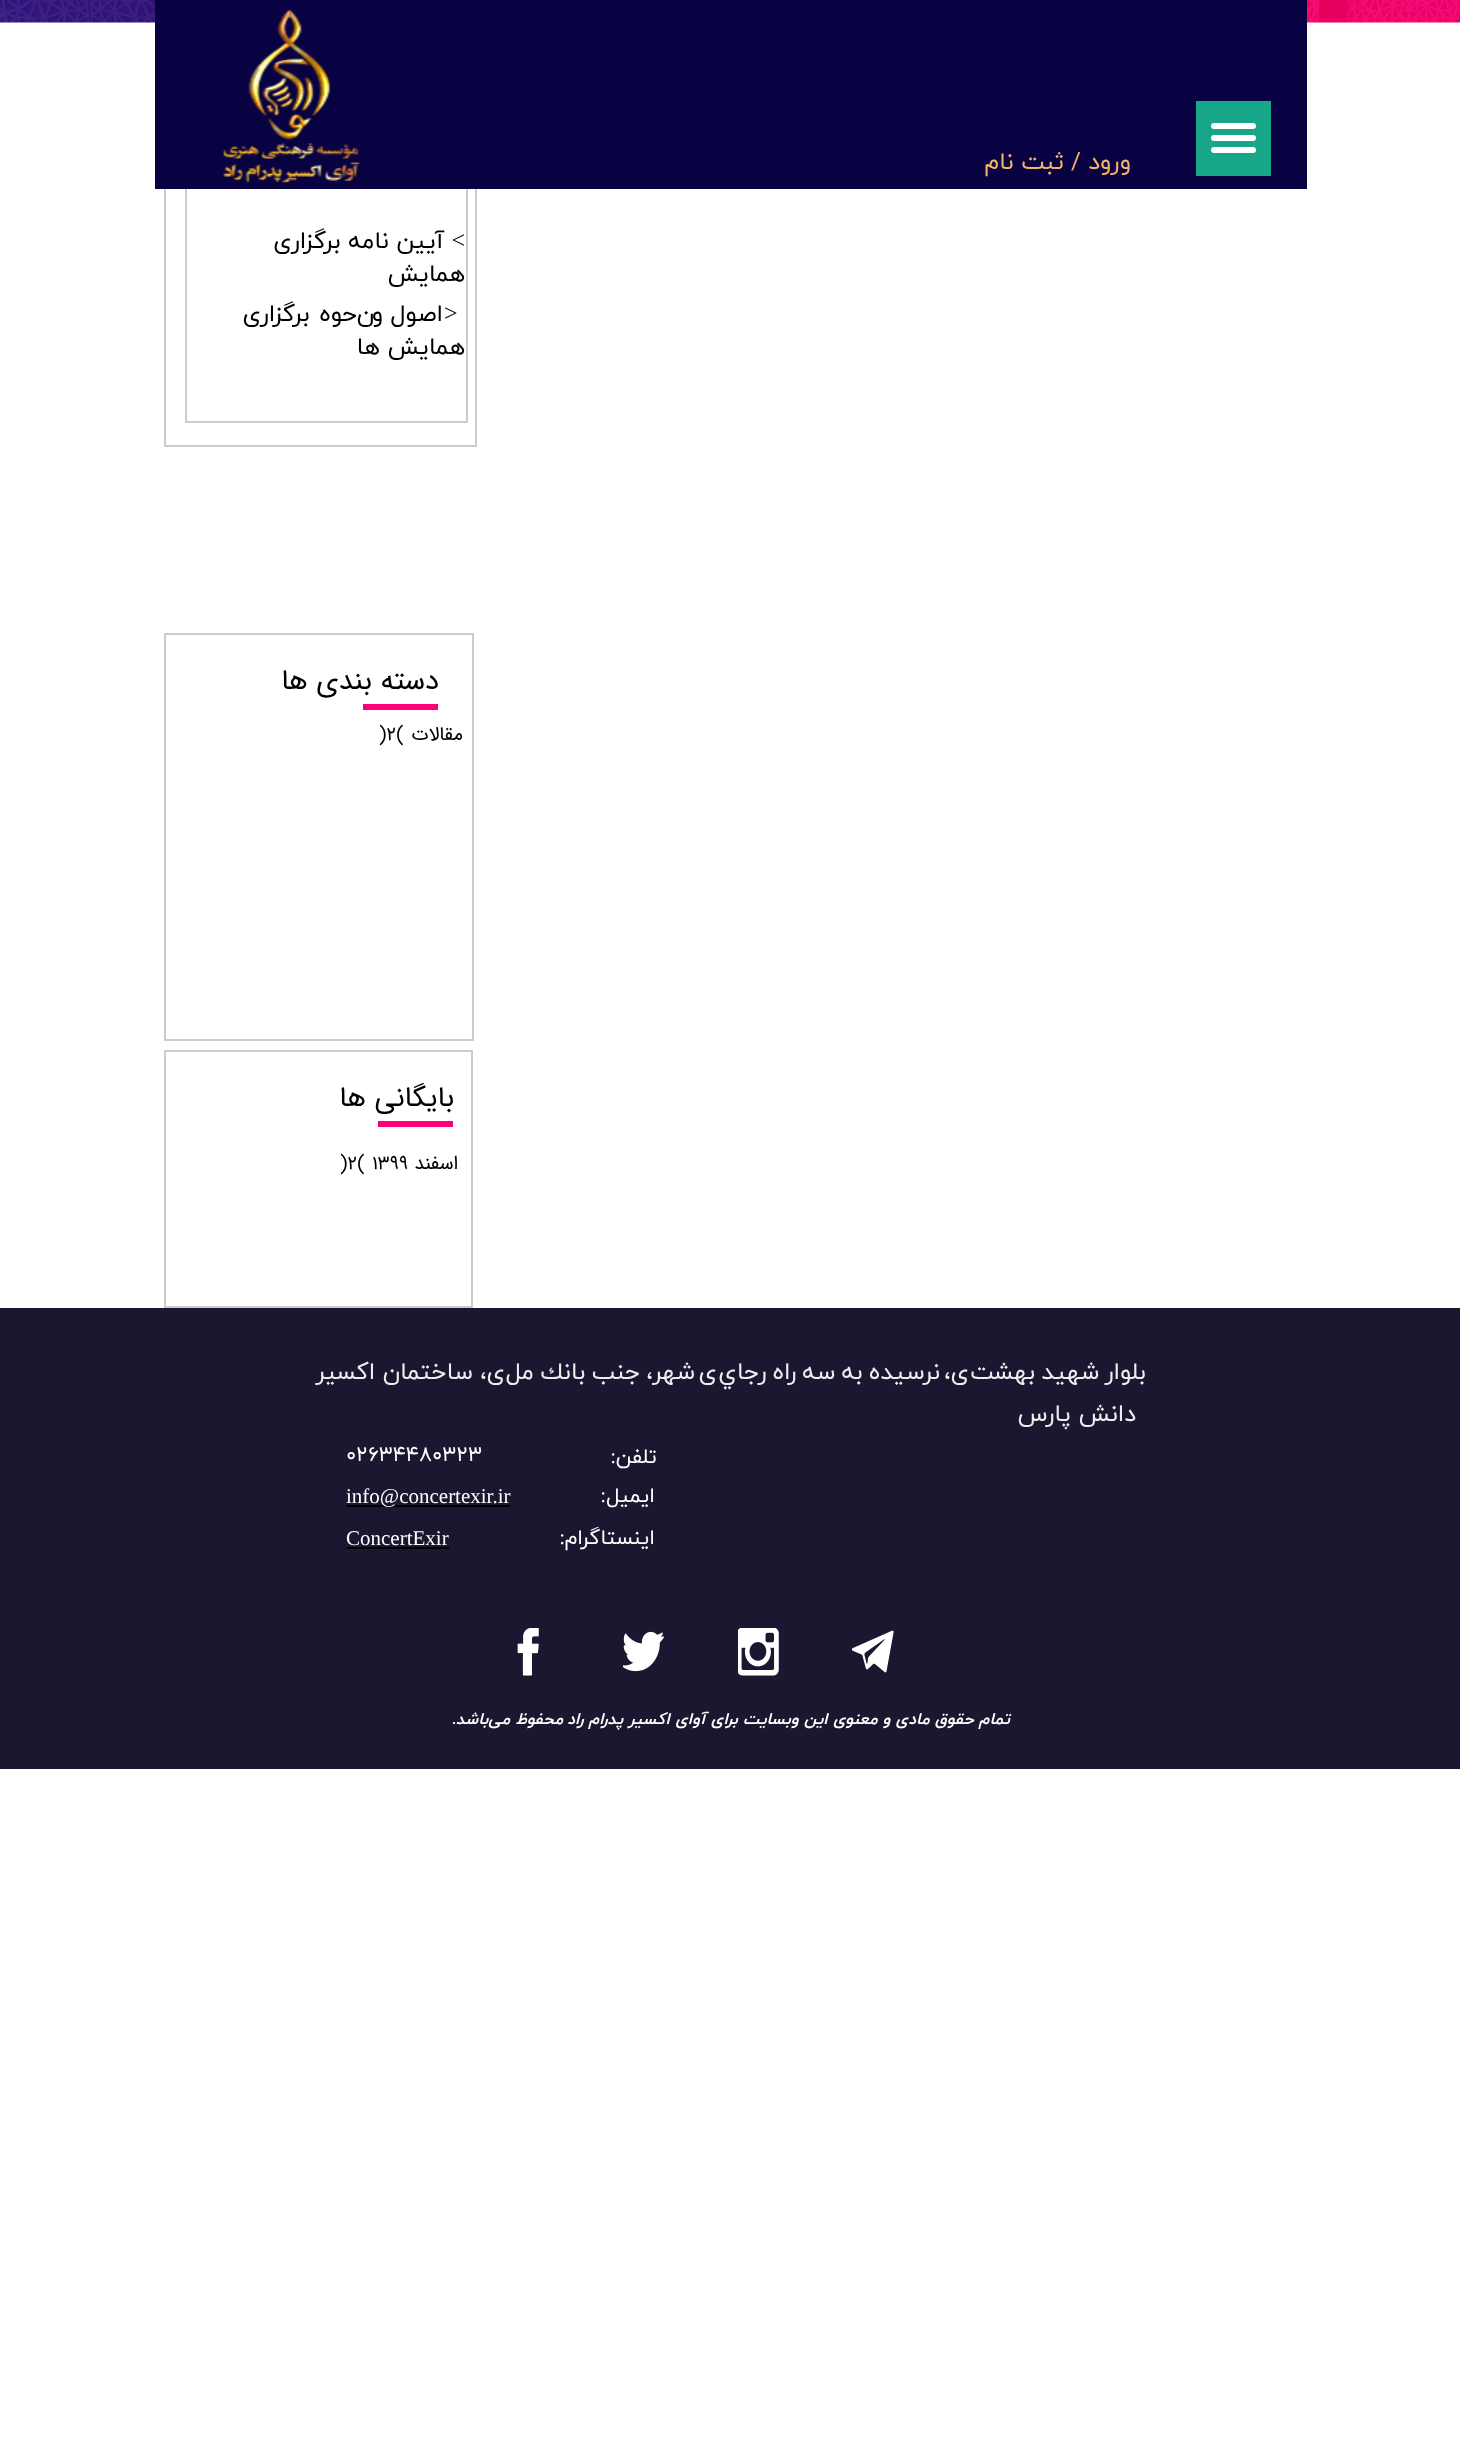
(async () => {
    const canvas = document.querySelector("canvas");
    canvas.width = 1460;
    canvas.height = 2442;
    const context = canvas.getContext("2d");
    context.miterLimit = 4;
    context.fontKerning = "normal";
    function write(s, x, y, font, color) {
        context.font = font;
        context.fillStyle = color;
        context.fillText(s, x, y);
    }
    function block(x, y, w, h, color) {
        context.fillStyle = color;
        context.fillRect(x, y, w, h);
    }
    function card(x, y, w, h, r, color) {
        context.fillStyle = color;
        context.beginPath();
        context.roundRect(x, y, w, h, r);
        context.fill();
    }
    async function photo(src, x, y, w, h) {
        const img = new Image();
        img.src = src;
        await img.decode();
        context.drawImage(img, x, y, w, h);
    }

    block(0, 0, 1460, 2442, "rgb(255, 255, 255)");
    await photo("media/1.png", 0, 0, 1460, 23);
    context.strokeStyle = "rgb(204, 204, 204)";
    context.lineWidth = 2;
    context.strokeRect(165, 105, 311, 341);
    context.strokeRect(186, 184, 281, 238);
    block(155, 0, 1152, 189, "rgb(8, 1, 66)");
    block(1196, 101, 75, 75, "rgb(24, 166, 137)");
    card(1211, 123, 45, 6, 3, "rgb(255, 255, 255)");
    card(1211, 135, 45, 6, 3, "rgb(255, 255, 255)");
    card(1211, 147, 45, 6, 3, "rgb(255, 255, 255)");
    context.direction = "rtl";
    write("ورود", 1131, 169, "24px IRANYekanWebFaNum", "rgb(246, 178, 107)");
    context.direction = "ltr";
    write("/", 1071, 169, "24px IRANYekanWebFaNum", "rgb(246, 178, 107)");
    context.direction = "rtl";
    write("ثبت نام", 1064, 169, "24px IRANYekanWebFaNum", "rgb(246, 178, 107)");
    await photo("media/2.png", 223, 9, 138, 174);
    write(">", 465, 248, "24px Liberation Serif", "rgb(0, 0, 0)");
    write("آیین نامه برگزاری", 444, 248, "24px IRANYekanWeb", "rgb(0, 0, 0)");
    write("همایش", 465, 281, "24px IRANYekanWeb", "rgb(0, 0, 0)");
    context.direction = "ltr";
    write(">", 444, 321, "24px Liberation Serif", "rgb(0, 0, 0)");
    context.direction = "rtl";
    write("اصول و", 443, 321, "24px IRANYekanWeb", "rgb(0, 0, 0)");
    write("ن", 374, 321, "24px IRANYekanWeb", "rgb(0, 0, 0)");
    context.wordSpacing = "2px";
    write("حوه برگزاری", 357, 321, "24px IRANYekanWeb", "rgb(0, 0, 0)");
    context.wordSpacing = "0px";
    write("همایش ها", 465, 354, "24px IRANYekanWeb", "rgb(0, 0, 0)");
    context.strokeRect(165, 634, 308, 406);
    write("دسته بندی ها", 439, 689, "28.5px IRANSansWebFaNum", "rgb(0, 0, 0)");
    block(363, 704, 75, 6, "rgb(255, 0, 122)");
    write("مقالات", 463, 740, "19.5px IRANSansWebFaNum", "rgb(0, 0, 0)");
    context.direction = "ltr";
    write(")۲(", 379, 740, "19.5px IRANSansWebFaNum", "rgb(0, 0, 0)");
    context.strokeRect(165, 1051, 307, 256);
    context.direction = "rtl";
    write("بایگانی ها", 454, 1106, "28.5px IRANSansWebFaNum", "rgb(0, 0, 0)");
    block(378, 1121, 75, 6, "rgb(255, 0, 122)");
    write("اسفند", 458, 1169, "19.5px IRANSansWebFaNum", "rgb(0, 0, 0)");
    context.direction = "ltr";
    write("۱۳۹۹", 372, 1169, "19.5px IRANSansWebFaNum", "rgb(0, 0, 0)");
    write(")۲(", 340, 1169, "19.5px IRANSansWebFaNum", "rgb(0, 0, 0)");
    block(0, 1308, 1460, 461, "rgb(26, 24, 49)");
    context.wordSpacing = "-1.5px";
    context.direction = "rtl";
    write("بلوار شهيد بهشت", 1146, 1379, "24px IRANYekanWebFaNum", "rgb(238, 238, 238)");
    context.wordSpacing = "0px";
    write("ی،", 969, 1379, "24px IRANYekanWeb", "rgb(238, 238, 238)");
    context.wordSpacing = "-1.5px";
    write("نرسيده به سه راه رجاي", 940, 1379, "24px IRANYekanWebFaNum", "rgb(238, 238, 238)");
    context.wordSpacing = "0px";
    write("ی", 717, 1379, "24px IRANYekanWeb", "rgb(238, 238, 238)");
    context.wordSpacing = "-1.5px";
    write("شهر، جنب بانك مل", 695, 1379, "24px IRANYekanWebFaNum", "rgb(238, 238, 238)");
    context.wordSpacing = "0px";
    write("ی،", 505, 1379, "24px IRANYekanWeb", "rgb(238, 238, 238)");
    write("ساختمان اكسير", 473, 1379, "24px IRANYekanWebFaNum", "rgb(238, 238, 238)");
    write("دانش پارس", 1136, 1421, "24px IRANYekanWebFaNum", "rgb(238, 238, 238)");
    write("تلفن", 657, 1463, "21px IRANYekanWeb", "rgb(255, 255, 255)");
    write(":", 616, 1463, "21px Liberation Serif", "rgb(255, 255, 255)");
    context.direction = "ltr";
    write("02634480323", 346, 1461, "21px IRANYekanWebFaNum", "rgb(255, 255, 255)");
    context.direction = "rtl";
    write("ایمیل", 655, 1502, "21px IRANYekanWeb", "rgb(255, 255, 255)");
    write(":", 606, 1502, "21px Liberation Serif", "rgb(255, 255, 255)");
    block(347, 1505, 163, 2, "rgb(0, 0, 0)");
    context.direction = "ltr";
    write("info@concertexir.ir", 346, 1503, "21px Liberation Serif", "rgb(255, 255, 255)");
    context.direction = "rtl";
    write("اینستاگرام", 655, 1544, "21px IRANYekanWeb", "rgb(255, 255, 255)");
    write(":", 565, 1544, "21px Liberation Serif", "rgb(255, 255, 255)");
    context.direction = "ltr";
    write("ConcertExir", 346, 1545, "21px Liberation Serif", "rgb(255, 255, 255)");
    block(347, 1547, 102, 2, "rgb(0, 0, 0)");
    await photo("media/3.png", 852, 1630, 42, 43);
    await photo("media/4.png", 738, 1628, 41, 48);
    await photo("media/5.png", 623, 1631, 41, 41);
    await photo("media/6.png", 517, 1628, 22, 48);
    context.direction = "rtl";
    write("تمام حقوق مادی و معنوی این وبسایت برای آوای اکسیر", 1010, 1724, "italic bold 16.5px IRANYekanWebFaNum", "rgb(255, 255, 255)");
    write("پدرام راد", 623, 1724, "italic bold 16.5px IRANYekanWebFaNum", "rgb(255, 255, 255)");
    write("محفوظ می‌باشد.", 563, 1724, "italic bold 16.5px IRANYekanWebFaNum", "rgb(255, 255, 255)");
})();
